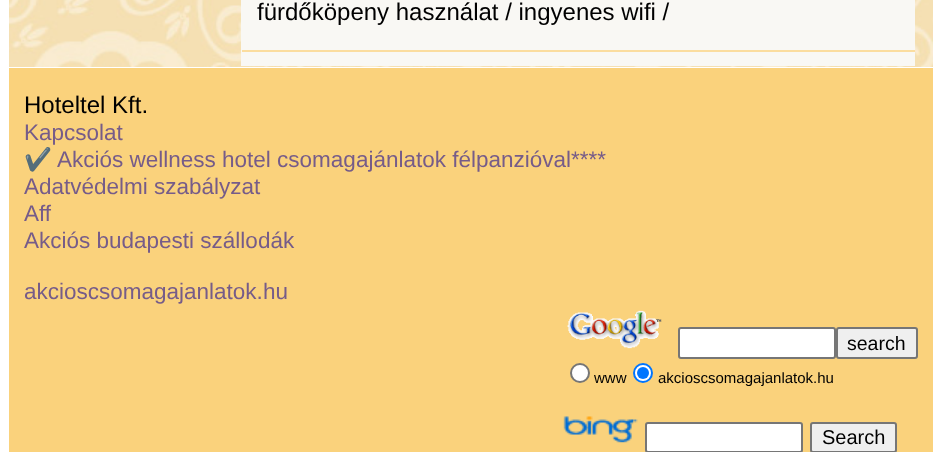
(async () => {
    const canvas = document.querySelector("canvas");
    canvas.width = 942;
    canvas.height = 452;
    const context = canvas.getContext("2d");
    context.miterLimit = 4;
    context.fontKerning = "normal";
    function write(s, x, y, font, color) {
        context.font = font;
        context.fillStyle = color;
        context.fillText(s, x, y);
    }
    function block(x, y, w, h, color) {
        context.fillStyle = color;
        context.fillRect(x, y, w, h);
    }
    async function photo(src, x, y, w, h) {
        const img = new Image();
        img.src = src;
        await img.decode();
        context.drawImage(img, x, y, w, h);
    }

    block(0, 0, 942, 452, "rgb(255, 255, 255)");
    await photo("media/1.png", 9, 0, 924, 67);
    block(241, 0, 674, 66, "rgb(249, 248, 244)");
    block(242, 50, 673, 2, "rgb(251, 221, 159)");
    write("fürdőköpeny használat / ingyenes wifi /", 257, 20, "24px Liberation Sans", "rgb(0, 0, 0)");
    block(9, 68, 924, 384, "rgb(250, 210, 124)");
    write("Hoteltel Kft.", 24, 113, "24px Liberation Sans", "rgb(0, 0, 0)");
    write("Kapcsolat", 24, 140, "22.5px Liberation Sans", "rgb(118, 92, 137)");
    write("✔️", 24, 167, "22.5px Noto Color Emoji", "rgb(118, 92, 137)");
    write("Akciós wellness hotel csomagajánlatok félpanzióval****", 57, 167, "22.5px Liberation Sans", "rgb(118, 92, 137)");
    write("Adatvédelmi szabályzat", 24, 194, "22.5px Liberation Sans", "rgb(118, 92, 137)");
    write("Aff", 24, 221, "22.5px Liberation Sans", "rgb(118, 92, 137)");
    write("Akciós budapesti szállodák", 24, 248, "22.5px Liberation Sans", "rgb(118, 92, 137)");
    write("akcioscsomagajanlatok.hu", 24, 299, "22.5px Liberation Sans", "rgb(118, 92, 137)");
    await photo("media/2.png", 567, 310, 95, 39);
    context.fillStyle = "rgb(255, 255, 255)";
    context.beginPath();
    context.roundRect(679, 328, 156, 30, 2);
    context.fill();
    context.strokeStyle = "rgb(118, 118, 118)";
    context.lineWidth = 2;
    context.stroke();
    context.fillStyle = "rgb(239, 239, 239)";
    context.beginPath();
    context.roundRect(837, 328, 80, 30, 2);
    context.fill();
    context.stroke();
    write("search", 847, 350, "19.5px Liberation Sans", "rgb(0, 0, 0)");
    context.fillStyle = "rgb(255, 255, 255)";
    context.beginPath();
    context.arc(580, 373, 9, 0, Math.PI * 2);
    context.fill();
    context.stroke();
    write("www", 594, 383, "15px Liberation Sans", "rgb(0, 0, 0)");
    context.fillStyle = "rgb(255, 255, 255)";
    context.beginPath();
    context.arc(643, 373, 9, 0, Math.PI * 2);
    context.fill();
    context.strokeStyle = "rgb(0, 117, 255)";
    context.stroke();
    context.fillStyle = "rgb(0, 117, 255)";
    context.beginPath();
    context.arc(643, 373, 6, 0, Math.PI * 2);
    context.fill();
    write("akcioscsomagajanlatok.hu", 658, 383, "15px Liberation Sans", "rgb(0, 0, 0)");
    await photo("media/3.png", 563, 416, 75, 27);
    context.fillStyle = "rgb(255, 255, 255)";
    context.beginPath();
    context.roundRect(646, 423, 156, 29, 2);
    context.fill();
    context.strokeStyle = "rgb(118, 118, 118)";
    context.stroke();
    context.fillStyle = "rgb(239, 239, 239)";
    context.beginPath();
    context.roundRect(811, 423, 85, 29, 2);
    context.fill();
    context.stroke();
    write("Search", 822, 444, "20px Liberation Sans", "rgb(0, 0, 0)");
})();
